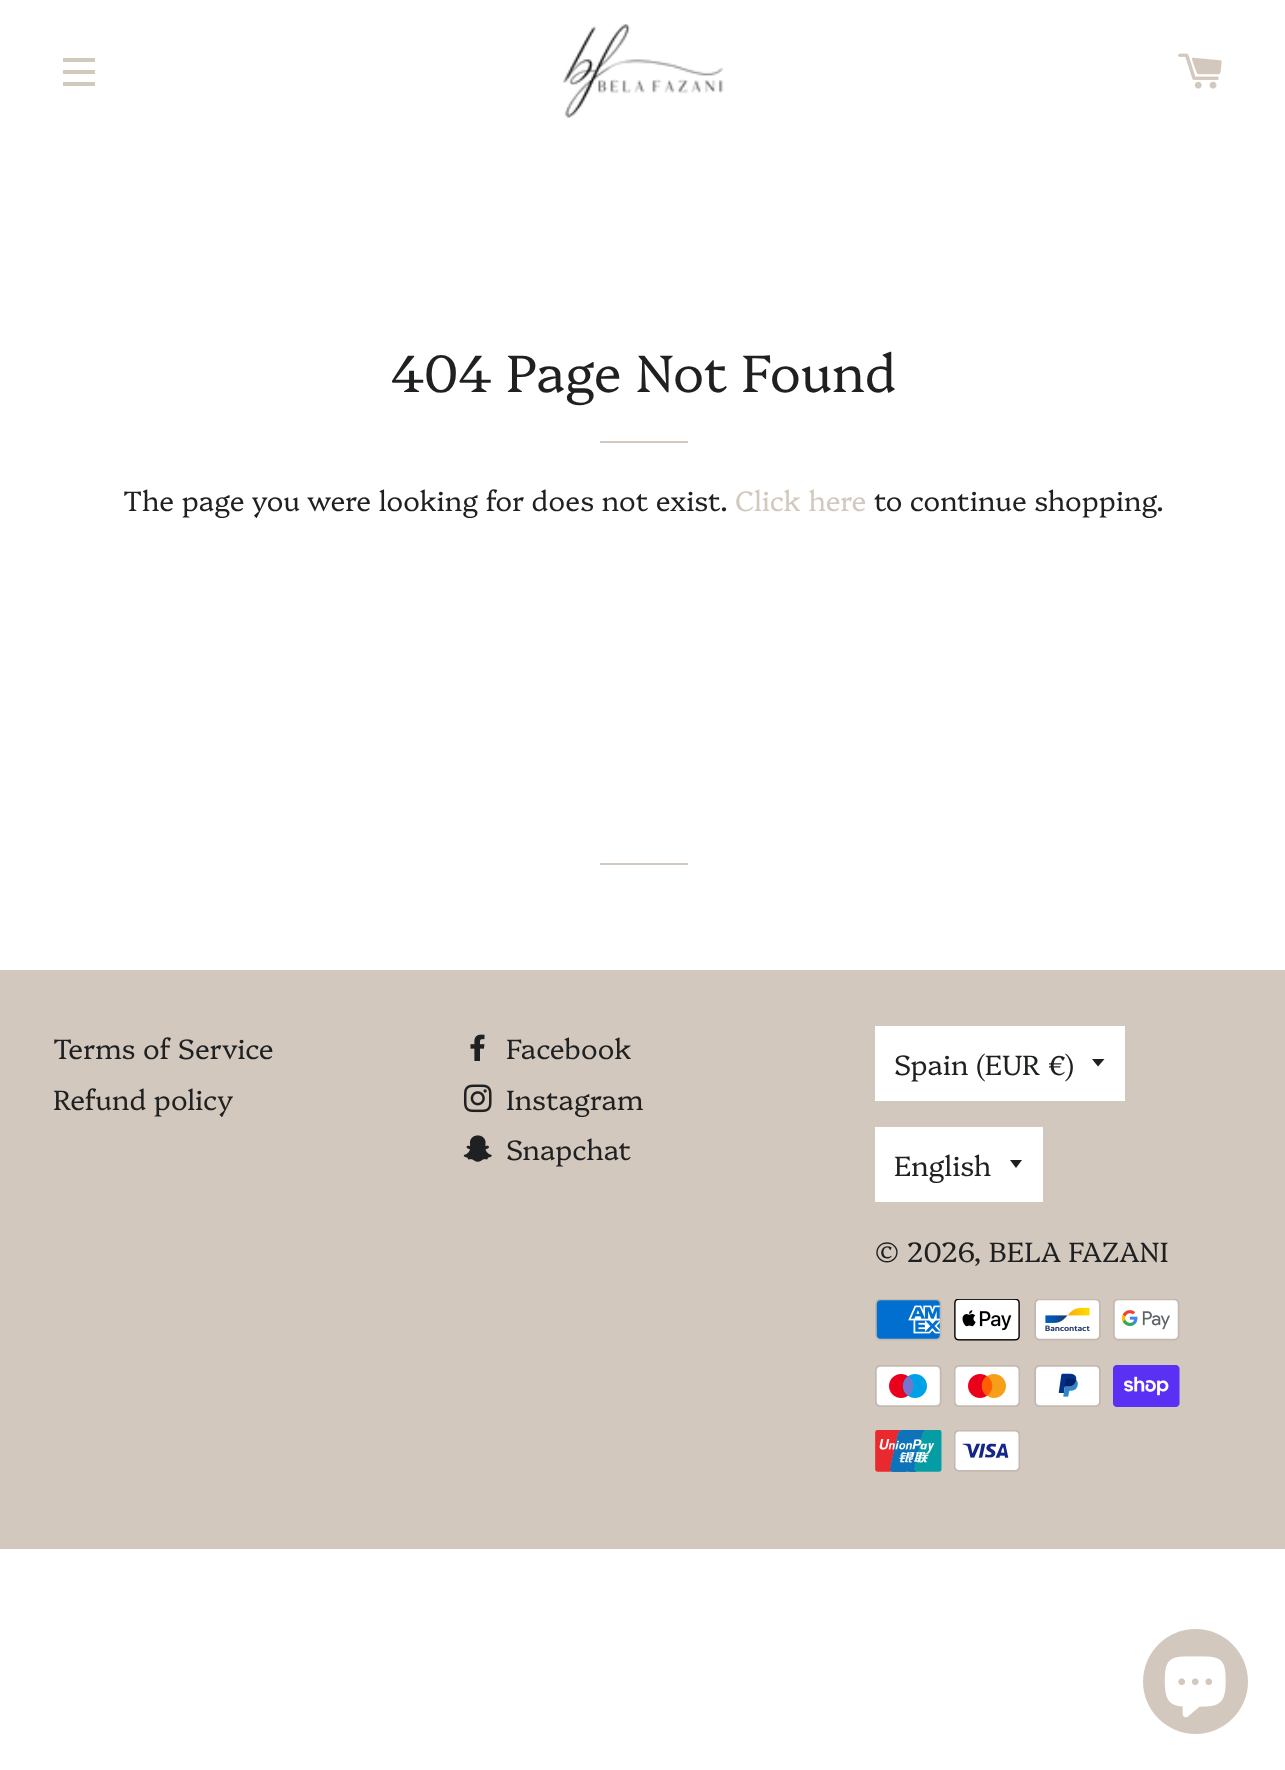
(async () => {
    const canvas = document.querySelector("canvas");
    canvas.width = 1285;
    canvas.height = 1770;
    const context = canvas.getContext("2d");
    context.miterLimit = 4;
    context.fontKerning = "normal";
    function write(s, x, y, font, color) {
        context.font = font;
        context.fillStyle = color;
        context.fillText(s, x, y);
    }
    function block(x, y, w, h, color) {
        context.fillStyle = color;
        context.fillRect(x, y, w, h);
    }
    async function photo(src, x, y, w, h) {
        const img = new Image();
        img.src = src;
        await img.decode();
        context.drawImage(img, x, y, w, h);
    }

    block(0, 0, 1285, 1770, "rgb(255, 255, 255)");
    block(63, 58, 32, 4, "rgb(211, 200, 190)");
    block(63, 70, 32, 4, "rgb(211, 200, 190)");
    block(63, 82, 32, 4, "rgb(211, 200, 190)");
    await photo("media/1.png", 563, 24, 161, 94);
    await photo("media/2.png", 1178, 53, 44, 36);
    write("404 Page Not Found", 391, 392, "300 52.5px Platypi", "rgb(31, 32, 33)");
    block(600, 441, 88, 2, "rgb(211, 200, 190)");
    write("The page you were looking for does not exist.", 123, 511, "300 28px Platypi", "rgb(31, 32, 33)");
    write("Click here", 735, 511, "300 28px Platypi", "rgb(211, 200, 190)");
    write("to continue shopping.", 874, 511, "300 28px Platypi", "rgb(31, 32, 33)");
    block(600, 863, 88, 2, "rgb(211, 200, 190)");
    block(0, 970, 1285, 579, "rgb(211, 200, 190)");
    write("Terms of Service", 53, 1059, "300 28px Platypi", "rgb(31, 32, 33)");
    write("Refund policy", 53, 1110, "300 28px Platypi", "rgb(31, 32, 33)");
    await photo("media/3.png", 470, 1034, 15, 27);
    write("Facebook", 506, 1059, "300 28px Platypi", "rgb(31, 32, 33)");
    await photo("media/4.png", 463, 1084, 29, 29);
    write("Instagram", 506, 1110, "300 28px Platypi", "rgb(31, 32, 33)");
    await photo("media/5.png", 463, 1135, 29, 27);
    write("Snapchat", 506, 1160, "300 28px Platypi", "rgb(31, 32, 33)");
    block(875, 1026, 250, 75, "rgb(255, 255, 255)");
    context.fillStyle = "rgb(31, 32, 33)";
    context.beginPath();
    context.moveTo(1092, 1059);
    context.lineTo(1098, 1066.5);
    context.lineTo(1104.5, 1059);
    context.closePath();
    context.fill();
    write("Spain (EUR €)", 894, 1075, "300 28px Platypi", "rgb(31, 32, 33)");
    block(875, 1127, 168, 75, "rgb(255, 255, 255)");
    context.fillStyle = "rgb(31, 32, 33)";
    context.beginPath();
    context.moveTo(1010, 1160);
    context.lineTo(1016, 1168);
    context.lineTo(1022, 1160);
    context.closePath();
    context.fill();
    write("English", 894, 1176, "300 28px Platypi", "rgb(31, 32, 33)");
    write("© 2026, BELA FAZANI", 875, 1262, "300 28px Platypi", "rgb(31, 32, 33)");
    await photo("media/6.png", 875, 1299, 67, 42);
    await photo("media/7.png", 954, 1299, 66, 42);
    await photo("media/8.png", 1034, 1299, 67, 42);
    await photo("media/9.png", 1113, 1299, 67, 42);
    await photo("media/10.png", 875, 1365, 67, 42);
    await photo("media/11.png", 954, 1365, 66, 42);
    await photo("media/12.png", 1034, 1365, 67, 42);
    await photo("media/13.png", 1113, 1365, 67, 42);
    await photo("media/14.png", 875, 1430, 67, 42);
    await photo("media/15.png", 954, 1430, 66, 42);
    context.fillStyle = "rgb(211, 200, 190)";
    context.beginPath();
    context.arc(1195.5, 1681.5, 52.5, 0, Math.PI * 2);
    context.fill();
    await photo("media/16.png", 1164, 1656, 62, 62);
})();
